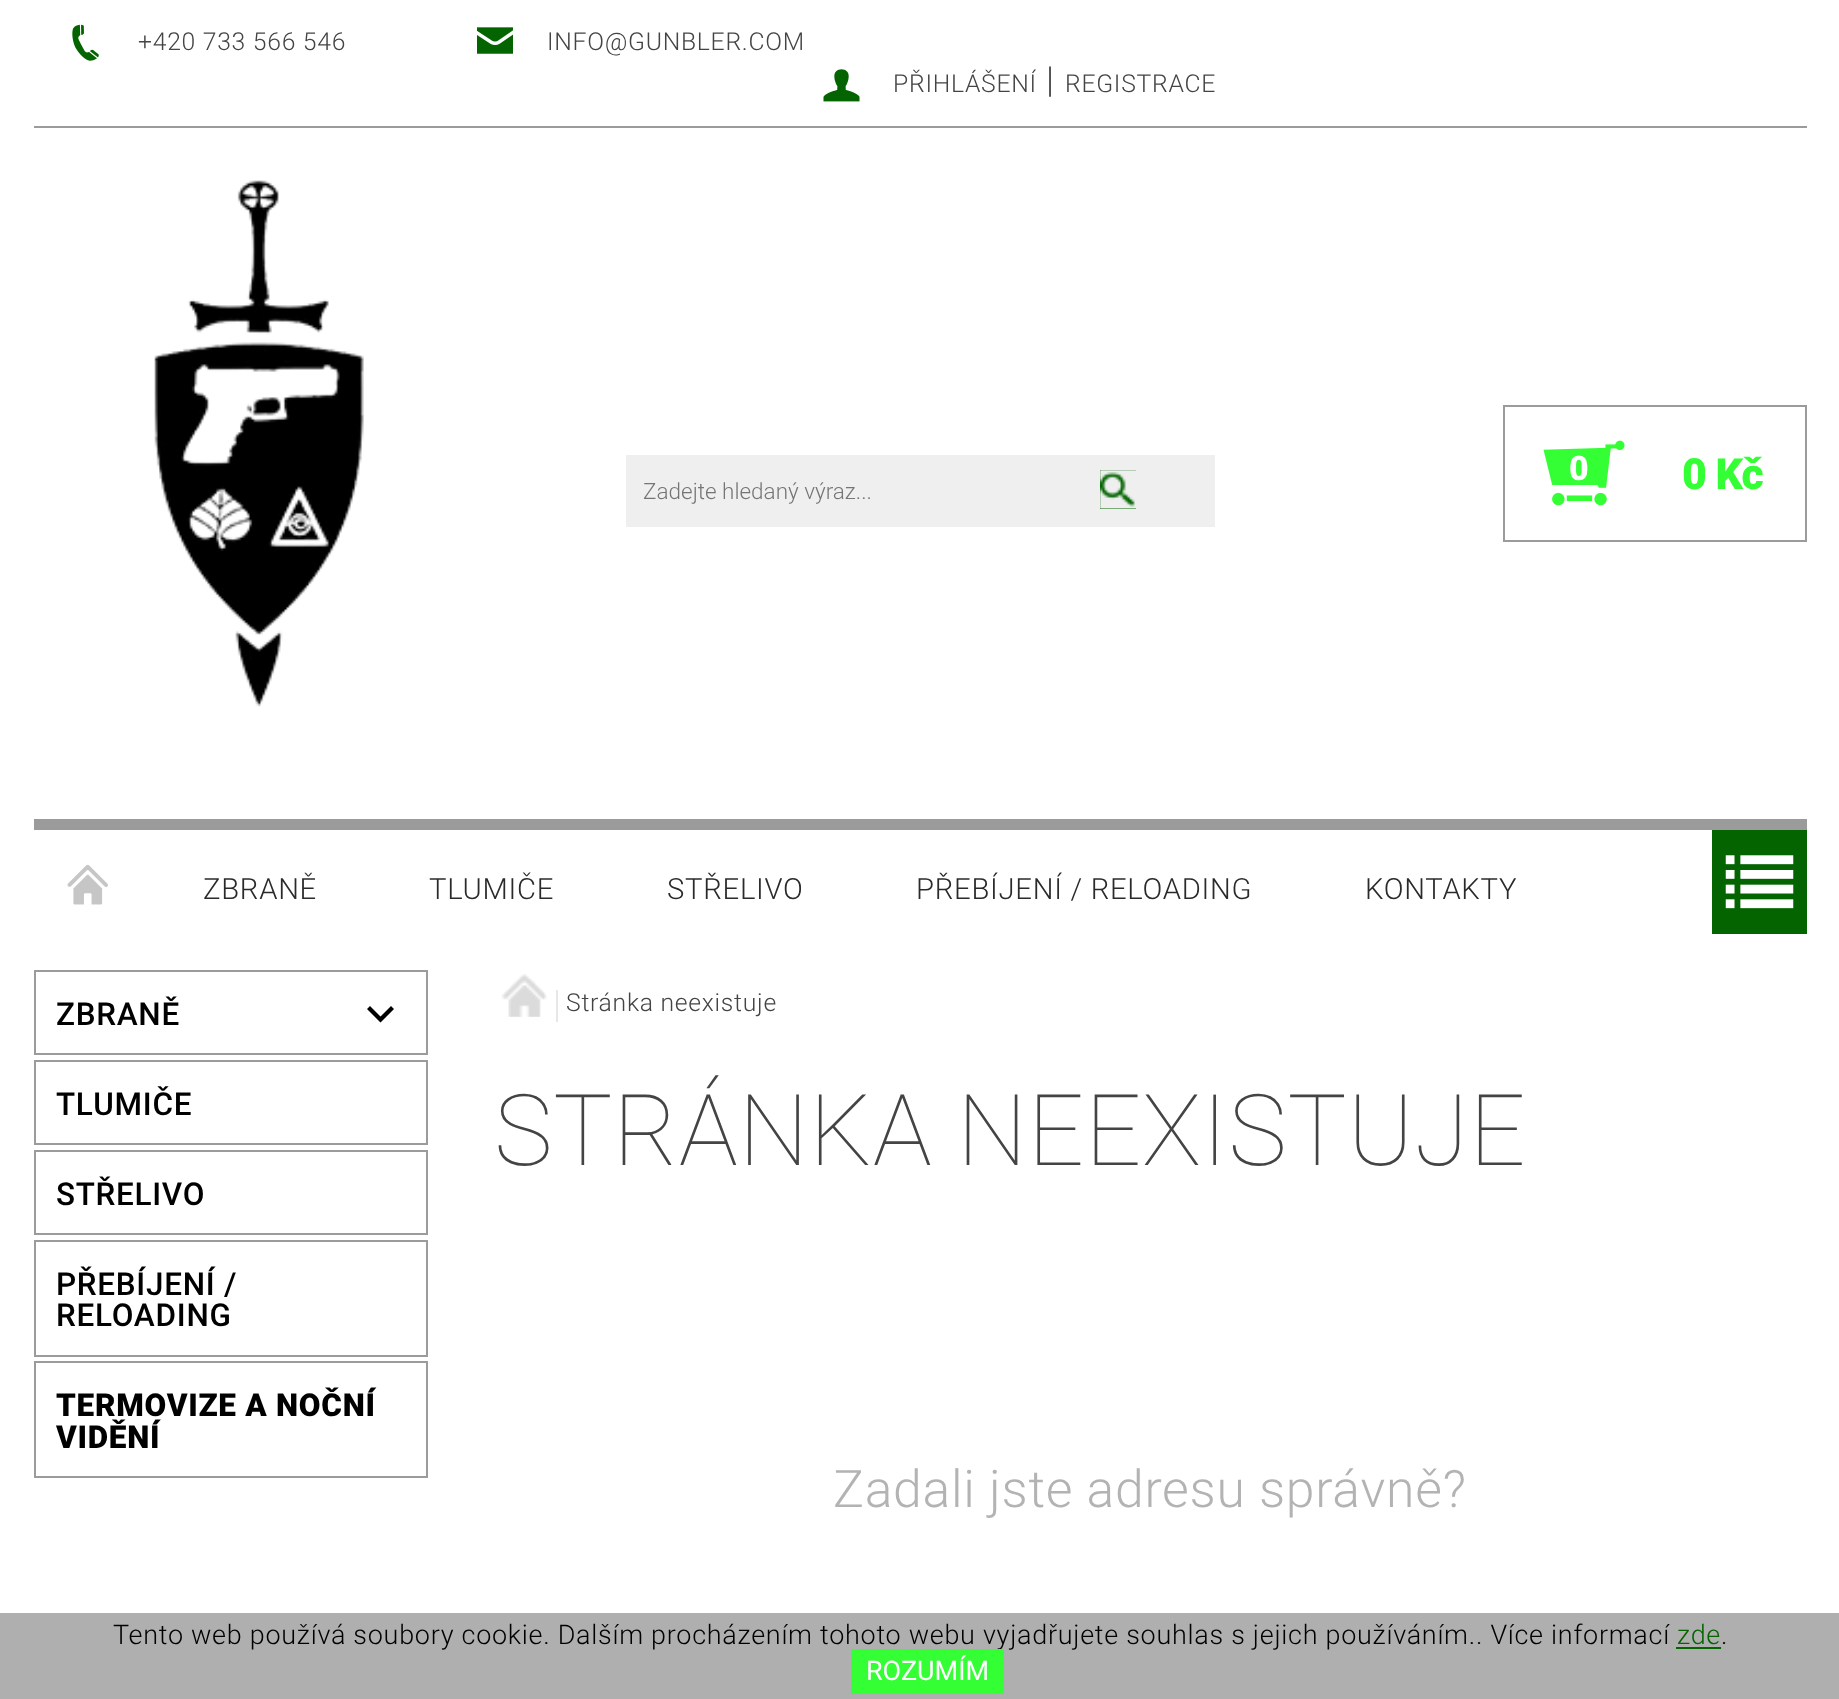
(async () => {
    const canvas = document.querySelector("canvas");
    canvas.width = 1839;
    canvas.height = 1699;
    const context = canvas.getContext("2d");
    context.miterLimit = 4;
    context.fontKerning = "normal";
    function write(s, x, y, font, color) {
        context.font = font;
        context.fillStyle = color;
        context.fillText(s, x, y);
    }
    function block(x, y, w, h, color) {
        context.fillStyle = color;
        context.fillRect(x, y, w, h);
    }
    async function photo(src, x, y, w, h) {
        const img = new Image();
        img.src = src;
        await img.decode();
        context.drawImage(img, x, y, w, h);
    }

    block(0, 0, 1839, 1699, "rgb(255, 255, 255)");
    block(34, 126, 1773, 2, "rgb(155, 155, 155)");
    await photo("media/1.png", 72, 24, 27, 37);
    context.letterSpacing = "0.72px";
    write("+420 733 566 546", 138, 50, "300 24.75px Roboto", "rgb(68, 68, 68)");
    await photo("media/2.png", 477, 27, 36, 27);
    write("INFO@GUNBLER.COM", 547, 50, "300 24.75px Roboto", "rgb(68, 68, 68)");
    await photo("media/3.png", 823, 69, 37, 33);
    write("PŘIHLÁŠENÍ", 893, 92, "300 24.75px Roboto", "rgb(68, 68, 68)");
    write("|", 1046, 92, "300 36px Roboto", "rgb(68, 68, 68)");
    write("REGISTRACE", 1065, 92, "300 24.75px Roboto", "rgb(68, 68, 68)");
    await photo("media/4.png", 154, 180, 210, 527);
    context.strokeStyle = "rgb(155, 155, 155)";
    context.lineWidth = 2;
    context.strokeRect(1504, 406, 302, 135);
    await photo("media/5.png", 1543, 440, 82, 66);
    context.letterSpacing = "-1px";
    write("0", 1569, 480, "900 34px Roboto", "rgb(255, 255, 255)");
    write("0 Kč", 1682, 489, "900 43px Roboto", "rgb(52, 255, 52)");
    block(626, 455, 589, 72, "rgb(239, 239, 239)");
    context.letterSpacing = "0px";
    write("Zadejte hledaný výraz...", 643, 499, "300 22.5px Roboto", "rgb(117, 117, 117)");
    block(1100, 470, 36, 39, "rgb(3, 100, 0)");
    await photo("media/6.png", 1100, 470, 36, 39);
    block(34, 819, 1773, 11, "rgb(155, 155, 155)");
    await photo("media/7.png", 67, 864, 41, 41);
    context.letterSpacing = "0.72px";
    write("ZBRANĚ", 203, 899, "300 29.25px Roboto", "rgb(42, 42, 42)");
    write("TLUMIČE", 429, 899, "300 29.25px Roboto", "rgb(42, 42, 42)");
    write("STŘELIVO", 667, 899, "300 29.25px Roboto", "rgb(42, 42, 42)");
    write("PŘEBÍJENÍ / RELOADING", 916, 899, "300 29.25px Roboto", "rgb(42, 42, 42)");
    write("KONTAKTY", 1365, 899, "300 29.25px Roboto", "rgb(42, 42, 42)");
    block(1712, 830, 95, 104, "rgb(3, 100, 0)");
    await photo("media/8.png", 1725, 855, 69, 54);
    context.strokeRect(35, 971, 392, 83);
    write("ZBRANĚ", 56, 1025, "500 31.5px Roboto", "rgb(0, 0, 0)");
    context.beginPath();
    context.moveTo(367, 1009);
    context.lineTo(380.5, 1022.5);
    context.lineTo(394, 1009);
    context.lineTo(391, 1006);
    context.lineTo(380.5, 1016.5);
    context.lineTo(370, 1006);
    context.closePath();
    context.fill();
    context.strokeRect(35, 1061, 392, 83);
    write("TLUMIČE", 56, 1115, "500 31.5px Roboto", "rgb(0, 0, 0)");
    context.strokeRect(35, 1151, 392, 83);
    write("STŘELIVO", 56, 1205, "500 31.5px Roboto", "rgb(0, 0, 0)");
    context.strokeRect(35, 1241, 392, 115);
    write("PŘEBÍJENÍ /", 56, 1295, "500 31.5px Roboto", "rgb(0, 0, 0)");
    write("RELOADING", 56, 1326, "500 31.5px Roboto", "rgb(0, 0, 0)");
    context.strokeRect(35, 1362, 392, 115);
    write("TERMOVIZE A NOČNÍ", 56, 1416, "900 31.5px Roboto", "rgb(0, 0, 0)");
    write("VIDĚNÍ", 56, 1448, "900 31.5px Roboto", "rgb(0, 0, 0)");
    await photo("media/9.png", 501, 974, 46, 43);
    block(556, 990, 2, 32, "rgb(231, 231, 231)");
    write("Stránka neexistuje", 566, 1011, "300 24.75px Roboto", "rgb(68, 68, 68)");
    write("STRÁNKA NEEXISTUJE", 494, 1165, "100 99px Roboto", "rgb(68, 68, 68)");
    write("Zadali jste adresu správně?", 833, 1507, "300 51.75px Roboto", "rgb(179, 179, 179)");
    block(0, 1613, 1839, 86, "rgb(175, 175, 175)");
    write("Tento web používá soubory cookie. Dalším procházením tohoto webu vyjadřujete souhlas s jejich používáním.. Více informací", 113, 1644, "300 27px Roboto", "rgb(0, 0, 0)");
    write("zde", 1677, 1644, "300 27px Roboto", "rgb(3, 100, 0)");
    block(1676, 1647, 45, 2, "rgb(3, 100, 0)");
    write(".", 1721, 1644, "300 27px Roboto", "rgb(0, 0, 0)");
    block(851, 1649, 153, 45, "rgb(52, 255, 52)");
    context.letterSpacing = "0px";
    write("ROZUMÍM", 866, 1680, "27px Roboto", "rgb(255, 255, 255)");
})();
